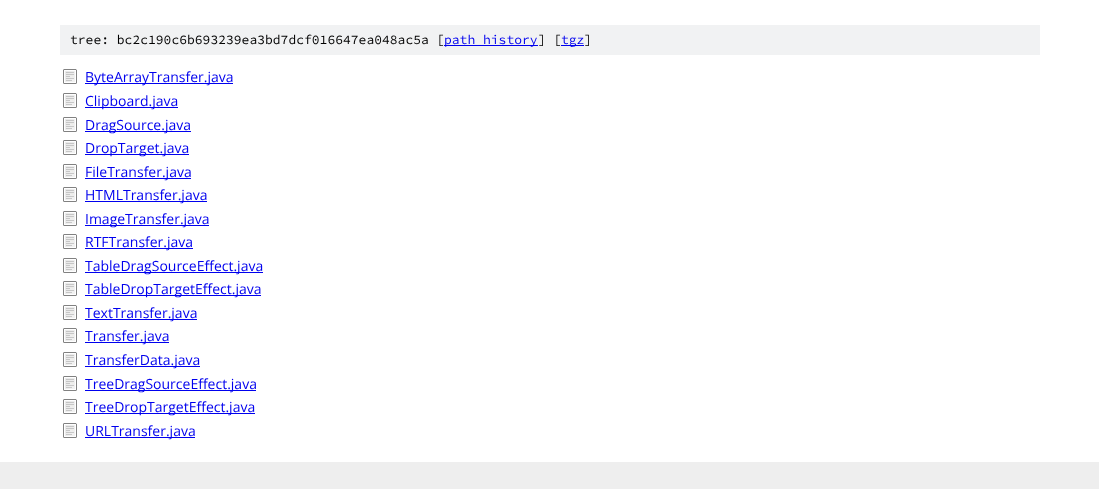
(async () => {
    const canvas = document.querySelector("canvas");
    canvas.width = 1099;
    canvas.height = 489;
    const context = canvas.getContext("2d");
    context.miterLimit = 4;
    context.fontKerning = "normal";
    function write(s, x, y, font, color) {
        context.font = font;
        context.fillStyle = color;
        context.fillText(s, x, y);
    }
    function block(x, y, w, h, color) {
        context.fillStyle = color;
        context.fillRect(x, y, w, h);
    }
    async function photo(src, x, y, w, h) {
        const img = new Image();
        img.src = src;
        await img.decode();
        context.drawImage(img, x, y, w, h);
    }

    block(0, 0, 1099, 489, "rgb(255, 255, 255)");
    block(60, 25, 980, 30, "rgb(241, 242, 243)");
    write("tree: bc2c190c6b693239ea3bd7dcf016647ea048ac5a [", 70, 44, "200 13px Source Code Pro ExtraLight", "rgb(0, 0, 0)");
    block(444, 45, 94, 1, "rgb(0, 0, 238)");
    write("path history", 444, 44, "200 13px Source Code Pro ExtraLight", "rgb(0, 0, 238)");
    write("] [", 538, 44, "200 13px Source Code Pro ExtraLight", "rgb(0, 0, 0)");
    block(561, 45, 23, 1, "rgb(0, 0, 238)");
    write("tgz", 561, 44, "200 13px Source Code Pro ExtraLight", "rgb(0, 0, 238)");
    write("]", 584, 44, "200 13px Source Code Pro ExtraLight", "rgb(0, 0, 0)");
    await photo("media/1.png", 63, 69, 14, 15);
    block(85, 83, 148, 1, "rgb(0, 0, 238)");
    write("ByteArrayTransfer.java", 85, 82, "14px Open Sans", "rgb(0, 0, 238)");
    await photo("media/1.png", 63, 93, 14, 15);
    block(85, 107, 93, 1, "rgb(0, 0, 238)");
    write("Clipboard.java", 85, 106, "14px Open Sans", "rgb(0, 0, 238)");
    await photo("media/1.png", 63, 117, 14, 15);
    block(85, 131, 106, 1, "rgb(0, 0, 238)");
    write("DragSource.java", 85, 130, "14px Open Sans", "rgb(0, 0, 238)");
    await photo("media/1.png", 63, 140, 14, 15);
    block(85, 154, 104, 1, "rgb(0, 0, 238)");
    write("DropTarget.java", 85, 153, "14px Open Sans", "rgb(0, 0, 238)");
    await photo("media/1.png", 63, 164, 14, 15);
    block(85, 178, 106, 1, "rgb(0, 0, 238)");
    write("FileTransfer.java", 85, 177, "14px Open Sans", "rgb(0, 0, 238)");
    await photo("media/1.png", 63, 187, 14, 15);
    block(85, 201, 122, 1, "rgb(0, 0, 238)");
    write("HTMLTransfer.java", 85, 200, "14px Open Sans", "rgb(0, 0, 238)");
    await photo("media/1.png", 63, 211, 14, 15);
    block(85, 225, 124, 1, "rgb(0, 0, 238)");
    write("ImageTransfer.java", 85, 224, "14px Open Sans", "rgb(0, 0, 238)");
    await photo("media/1.png", 63, 234, 14, 15);
    block(85, 248, 108, 1, "rgb(0, 0, 238)");
    write("RTFTransfer.java", 85, 247, "14px Open Sans", "rgb(0, 0, 238)");
    await photo("media/1.png", 63, 258, 14, 15);
    block(85, 272, 178, 1, "rgb(0, 0, 238)");
    write("TableDragSourceEffect.java", 85, 271, "14px Open Sans", "rgb(0, 0, 238)");
    await photo("media/1.png", 63, 281, 14, 15);
    block(85, 295, 176, 1, "rgb(0, 0, 238)");
    write("TableDropTargetEffect.java", 85, 294, "14px Open Sans", "rgb(0, 0, 238)");
    await photo("media/1.png", 63, 305, 14, 15);
    block(85, 319, 112, 1, "rgb(0, 0, 238)");
    write("TextTransfer.java", 85, 318, "14px Open Sans", "rgb(0, 0, 238)");
    await photo("media/1.png", 63, 328, 14, 15);
    block(85, 342, 84, 1, "rgb(0, 0, 238)");
    write("Transfer.java", 85, 341, "14px Open Sans", "rgb(0, 0, 238)");
    await photo("media/1.png", 63, 352, 14, 15);
    block(85, 366, 115, 1, "rgb(0, 0, 238)");
    write("TransferData.java", 85, 365, "14px Open Sans", "rgb(0, 0, 238)");
    await photo("media/1.png", 63, 376, 14, 15);
    block(85, 390, 171, 1, "rgb(0, 0, 238)");
    write("TreeDragSourceEffect.java", 85, 389, "14px Open Sans", "rgb(0, 0, 238)");
    await photo("media/1.png", 63, 399, 14, 15);
    block(85, 413, 170, 1, "rgb(0, 0, 238)");
    write("TreeDropTargetEffect.java", 85, 412, "14px Open Sans", "rgb(0, 0, 238)");
    await photo("media/1.png", 63, 423, 14, 15);
    block(85, 437, 110, 1, "rgb(0, 0, 238)");
    write("URLTransfer.java", 85, 436, "14px Open Sans", "rgb(0, 0, 238)");
    block(0, 462, 1099, 27, "rgb(238, 238, 238)");
})();
